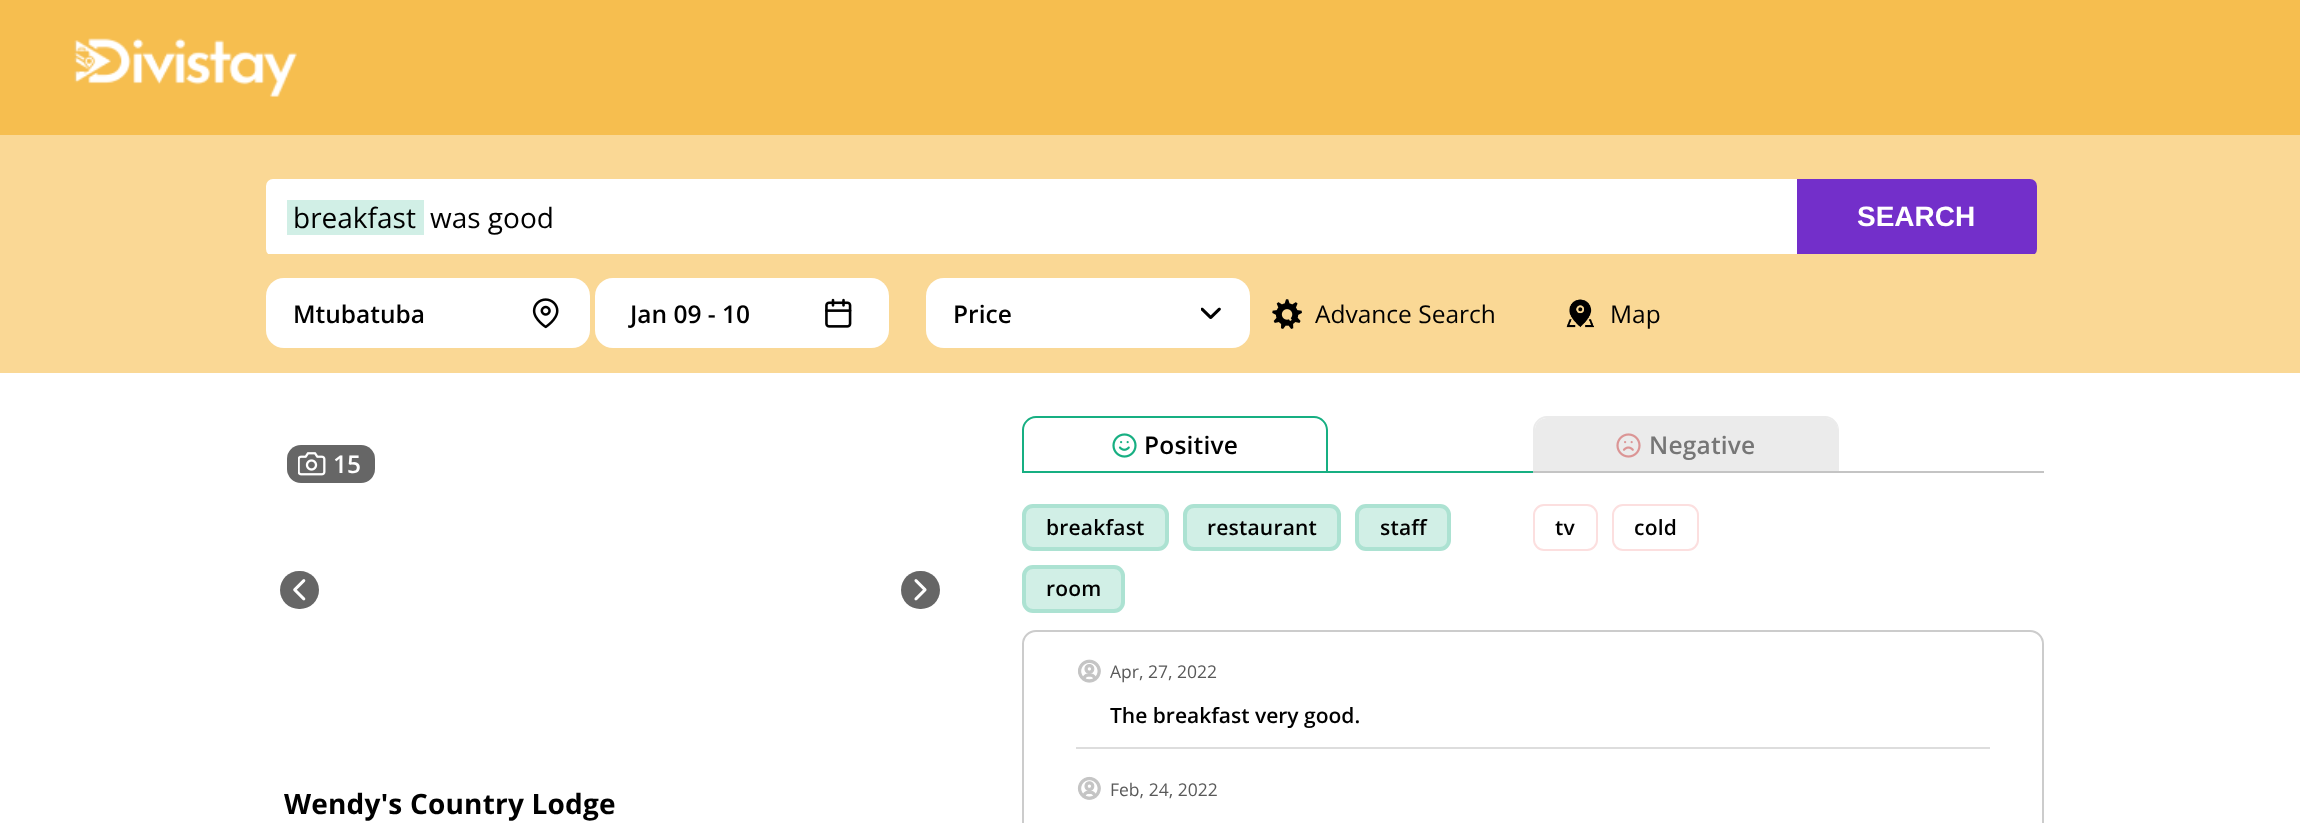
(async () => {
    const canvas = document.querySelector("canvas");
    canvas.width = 2300;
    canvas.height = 823;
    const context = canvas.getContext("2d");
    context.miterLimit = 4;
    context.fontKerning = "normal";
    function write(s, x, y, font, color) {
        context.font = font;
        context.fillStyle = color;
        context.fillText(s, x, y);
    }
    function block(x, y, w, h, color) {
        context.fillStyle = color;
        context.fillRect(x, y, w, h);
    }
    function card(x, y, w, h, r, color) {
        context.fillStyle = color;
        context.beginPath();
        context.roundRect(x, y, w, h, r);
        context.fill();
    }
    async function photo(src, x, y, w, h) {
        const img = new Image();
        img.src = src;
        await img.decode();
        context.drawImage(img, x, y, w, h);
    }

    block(0, 0, 2300, 823, "rgb(255, 255, 255)");
    block(0, 0, 2300, 135, "rgb(246, 190, 79)");
    await photo("media/1.png", 74, 38, 223, 59);
    block(0, 135, 2300, 119, "rgb(250, 216, 149)");
    context.fillStyle = "rgb(255, 255, 255)";
    context.beginPath();
    context.roundRect(266, 179, 1531, 77, [7, 0, 0, 7]);
    context.fill();
    block(287, 200, 137, 35, "rgb(209, 239, 230)");
    write("breakfast", 293, 228, "28px Open Sans", "rgb(0, 0, 0)");
    write("was good", 430, 228, "28px Open Sans", "rgb(0, 0, 0)");
    context.fillStyle = "rgb(115, 47, 202)";
    context.beginPath();
    context.roundRect(1797, 179, 240, 77, [0, 7, 7, 0]);
    context.fill();
    write("SEARCH", 1857, 226, "bold 28px Liberation Sans", "rgb(255, 255, 255)");
    block(0, 254, 2300, 119, "rgb(250, 216, 149)");
    card(266, 278, 324, 70, 18, "rgb(255, 255, 255)");
    write("Mtubatuba", 293, 323, "600 24.5px Open Sans", "rgb(0, 0, 0)");
    await photo("media/2.png", 532, 298, 27, 31);
    card(595, 278, 294, 70, 18, "rgb(255, 255, 255)");
    write("Jan 09 - 10", 630, 323, "600 24.5px Open Sans", "rgb(0, 0, 0)");
    await photo("media/3.png", 825, 298, 27, 30);
    card(926, 278, 324, 70, 18, "rgb(255, 255, 255)");
    write("Price", 953, 323, "600 24.5px Open Sans", "rgb(0, 0, 0)");
    await photo("media/4.png", 1201, 307, 20, 12);
    await photo("media/5.png", 1272, 299, 30, 30);
    write("Advance Search", 1315, 323, "24.5px Open Sans", "rgb(0, 0, 0)");
    await photo("media/6.png", 1566, 299, 28, 29);
    write("Map", 1610, 323, "24.5px Open Sans", "rgb(0, 0, 0)");
    card(287, 445, 88, 38, 14, "rgb(102, 102, 102)");
    await photo("media/7.png", 298, 452, 28, 24);
    write("15", 333, 473, "600 24.5px Open Sans", "rgb(255, 255, 255)");
    card(280, 571, 39, 38, 19, "rgb(102, 102, 102)");
    await photo("media/8.png", 293, 579, 13, 22);
    card(901, 571, 39, 38, 19, "rgb(102, 102, 102)");
    await photo("media/9.png", 914, 579, 13, 22);
    context.letterSpacing = "0.2px";
    write("Wendy's Country Lodge", 284, 814, "bold 28px Open Sans", "rgb(0, 0, 0)");
    block(1022, 471, 511, 2, "rgb(23, 175, 130)");
    context.beginPath();
    context.moveTo(1036, 416);
    context.lineTo(1314, 416);
    context.bezierCurveTo(1322, 416, 1328, 423, 1328, 430);
    context.lineTo(1328, 471);
    context.lineTo(1022, 471);
    context.lineTo(1022, 430);
    context.bezierCurveTo(1022, 423, 1028, 416, 1036, 416);
    context.closePath();
    context.moveTo(1036, 418);
    context.lineTo(1314, 418);
    context.bezierCurveTo(1321, 418, 1326, 424, 1326, 430);
    context.lineTo(1326, 471);
    context.lineTo(1024, 471);
    context.lineTo(1024, 430);
    context.bezierCurveTo(1024, 424, 1029, 418, 1036, 418);
    context.closePath();
    context.fill("evenodd");
    await photo("media/10.png", 1112, 433, 25, 25);
    write("Positive", 1144, 454, "600 24.5px Open Sans", "rgb(0, 0, 0)");
    block(1533, 471, 511, 2, "rgb(196, 196, 196)");
    context.fillStyle = "rgb(235, 235, 235)";
    context.beginPath();
    context.roundRect(1535, 418, 303, 53, [12, 12, 0, 0]);
    context.fill();
    context.beginPath();
    context.moveTo(1547, 416);
    context.lineTo(1825, 416);
    context.bezierCurveTo(1833, 416, 1839, 423, 1839, 430);
    context.lineTo(1839, 471);
    context.lineTo(1533, 471);
    context.lineTo(1533, 430);
    context.bezierCurveTo(1533, 423, 1539, 416, 1547, 416);
    context.closePath();
    context.moveTo(1547, 418);
    context.lineTo(1825, 418);
    context.bezierCurveTo(1832, 418, 1838, 424, 1838, 430);
    context.lineTo(1838, 471);
    context.lineTo(1535, 471);
    context.lineTo(1535, 430);
    context.bezierCurveTo(1535, 424, 1540, 418, 1547, 418);
    context.closePath();
    context.fill("evenodd");
    await photo("media/11.png", 1616, 433, 25, 25);
    write("Negative", 1649, 454, "600 24.5px Open Sans", "rgb(118, 118, 118)");
    card(1022, 504, 147, 47, 11, "rgb(209, 239, 230)");
    context.beginPath();
    context.roundRect(1024, 506, 143, 43, 9);
    context.strokeStyle = "rgba(23, 175, 130, 0.2)";
    context.lineWidth = 4;
    context.stroke();
    write("breakfast", 1046, 535, "600 21px Open Sans", "rgb(0, 0, 0)");
    card(1183, 504, 158, 47, 11, "rgb(209, 239, 230)");
    context.beginPath();
    context.roundRect(1185, 506, 154, 43, 9);
    context.stroke();
    write("restaurant", 1207, 535, "600 21px Open Sans", "rgb(0, 0, 0)");
    card(1355, 504, 96, 47, 11, "rgb(209, 239, 230)");
    context.beginPath();
    context.roundRect(1357, 506, 92, 43, 9);
    context.stroke();
    write("staff", 1380, 535, "600 21px Open Sans", "rgb(0, 0, 0)");
    card(1022, 565, 103, 48, 11, "rgb(209, 239, 230)");
    context.beginPath();
    context.roundRect(1024, 567, 99, 44, 9);
    context.stroke();
    write("room", 1046, 596, "600 21px Open Sans", "rgb(0, 0, 0)");
    context.beginPath();
    context.roundRect(1534, 505, 63, 45, 10);
    context.strokeStyle = "rgb(252, 223, 223)";
    context.lineWidth = 2;
    context.stroke();
    write("tv", 1555, 535, "600 21px Open Sans", "rgb(0, 0, 0)");
    context.beginPath();
    context.roundRect(1613, 505, 85, 45, 10);
    context.stroke();
    write("cold", 1634, 535, "600 21px Open Sans", "rgb(0, 0, 0)");
    context.beginPath();
    context.roundRect(1023, 631, 1020, 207, 13);
    context.strokeStyle = "rgb(204, 204, 204)";
    context.stroke();
    block(1076, 747, 914, 2, "rgb(221, 221, 221)");
    await photo("media/12.png", 1078, 659, 23, 24);
    context.letterSpacing = "0px";
    write("Apr, 27, 2022", 1110, 678, "17.5px Open Sans", "rgb(89, 89, 89)");
    write("The breakfast very good.", 1110, 723, "600 21px Open Sans", "rgb(0, 0, 0)");
    await photo("media/13.png", 1077, 776, 24, 24);
    write("Feb, 24, 2022", 1110, 796, "17.5px Open Sans", "rgb(89, 89, 89)");
})();
